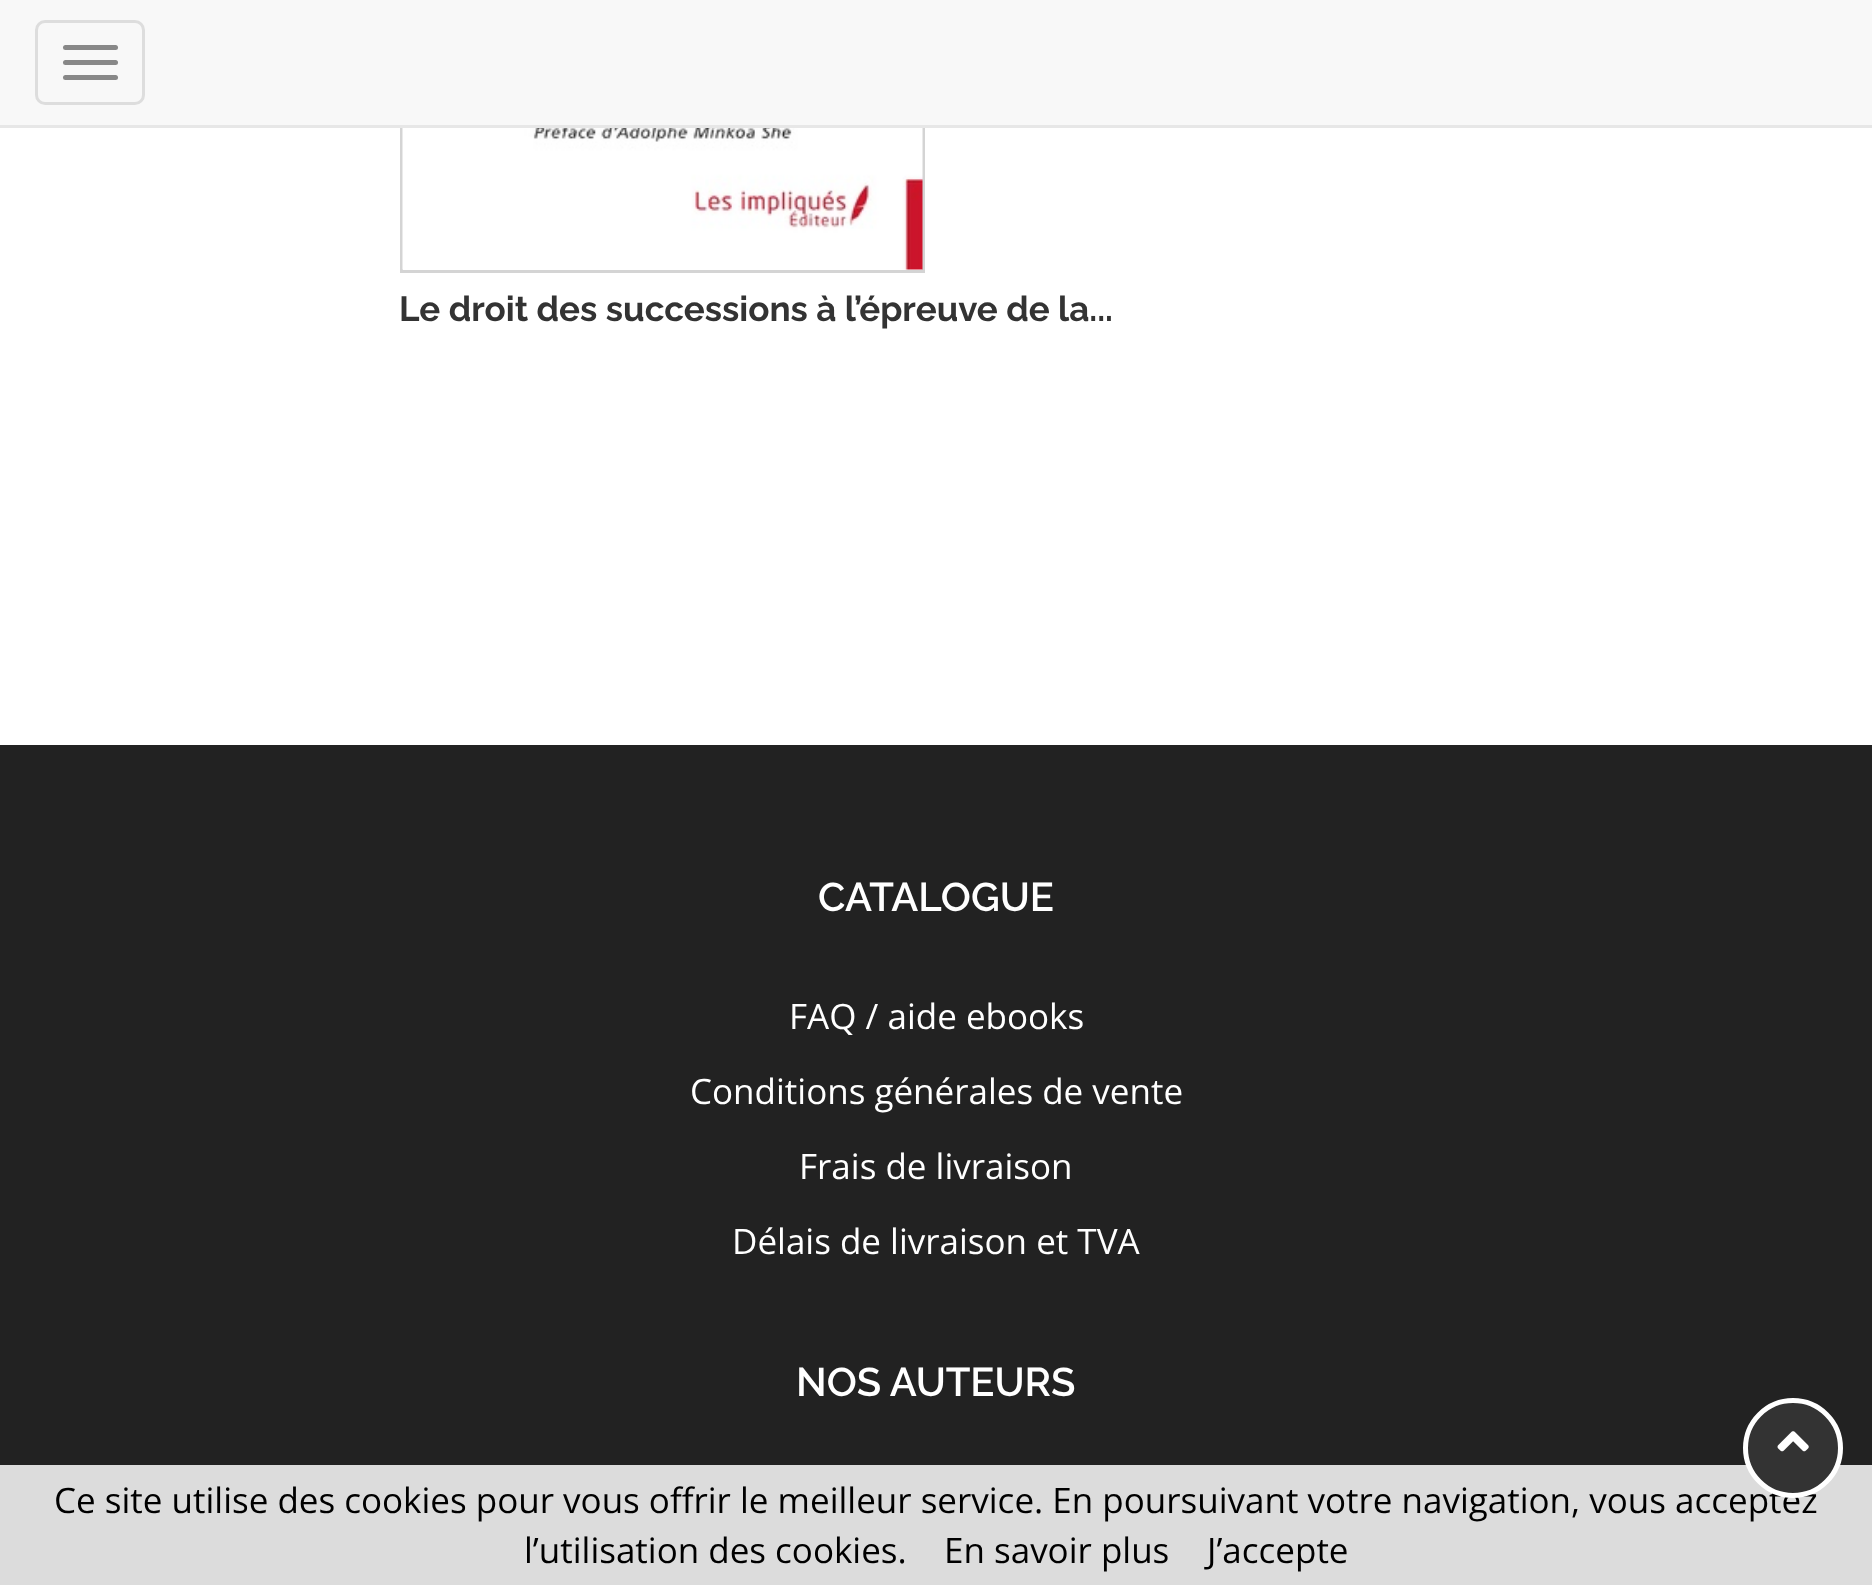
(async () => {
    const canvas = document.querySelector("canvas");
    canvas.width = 1872;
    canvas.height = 1585;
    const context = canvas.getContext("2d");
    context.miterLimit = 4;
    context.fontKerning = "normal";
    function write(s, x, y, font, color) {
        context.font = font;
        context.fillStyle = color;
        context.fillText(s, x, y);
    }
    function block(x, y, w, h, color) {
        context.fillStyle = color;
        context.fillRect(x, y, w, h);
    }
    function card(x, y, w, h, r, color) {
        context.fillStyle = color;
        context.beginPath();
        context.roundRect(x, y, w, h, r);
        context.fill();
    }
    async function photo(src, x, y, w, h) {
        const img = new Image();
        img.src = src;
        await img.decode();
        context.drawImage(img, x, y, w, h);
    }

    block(0, 0, 1872, 1585, "rgb(255, 255, 255)");
    context.strokeStyle = "rgb(212, 212, 212)";
    context.lineWidth = 3;
    context.strokeRect(401.5, -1.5, 522, 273);
    block(0, 0, 1872, 125, "rgb(248, 248, 248)");
    block(0, 125, 1872, 3, "rgb(231, 231, 231)");
    context.beginPath();
    context.roundRect(36.5, 21.5, 107, 82, 8.5);
    context.strokeStyle = "rgb(221, 221, 221)";
    context.stroke();
    card(63, 45, 55, 5, 2.5, "rgb(136, 136, 136)");
    card(63, 60, 55, 5, 2.5, "rgb(136, 136, 136)");
    card(63, 75, 55, 5, 2.5, "rgb(136, 136, 136)");
    await photo("media/1.png", 402, 128, 521, 142);
    write("Le droit des successions à l’épreuve de la...", 399, 321, "bold 35px Raleway", "rgb(51, 51, 51)");
    block(0, 745, 1872, 720, "rgb(34, 34, 34)");
    write("CATALOGUE", 818, 911, "600 40px Raleway", "rgb(255, 255, 255)");
    write("FAQ / aide ebooks", 789, 1029, "35px Open Sans", "rgb(255, 255, 255)");
    write("Conditions générales de vente", 690, 1104, "35px Open Sans", "rgb(255, 255, 255)");
    write("Frais de livraison", 799, 1179, "35px Open Sans", "rgb(255, 255, 255)");
    write("Délais de livraison et TVA", 732, 1254, "35px Open Sans", "rgb(255, 255, 255)");
    write("NOS AUTEURS", 796, 1396, "600 40px Raleway", "rgb(255, 255, 255)");
    block(0, 1465, 1872, 120, "rgb(220, 220, 220)");
    write("Ce site utilise des cookies pour vous offrir le meilleur service. En poursuivant votre navigation, vous acceptez", 54, 1513, "35px Open Sans", "rgb(0, 0, 0)");
    context.fillStyle = "rgb(51, 51, 51)";
    context.beginPath();
    context.arc(1793, 1448, 47.5, 0, Math.PI * 2);
    context.fill();
    context.strokeStyle = "rgb(255, 255, 255)";
    context.lineWidth = 5;
    context.stroke();
    await photo("media/2.png", 1777, 1431, 32, 21);
    write("l’utilisation des cookies.", 524, 1563, "35px Open Sans", "rgb(0, 0, 0)");
    write("En savoir plus", 944, 1563, "35px Open Sans", "rgb(0, 0, 0)");
    write("J’accepte", 1207, 1563, "35px Open Sans", "rgb(0, 0, 0)");
})();
